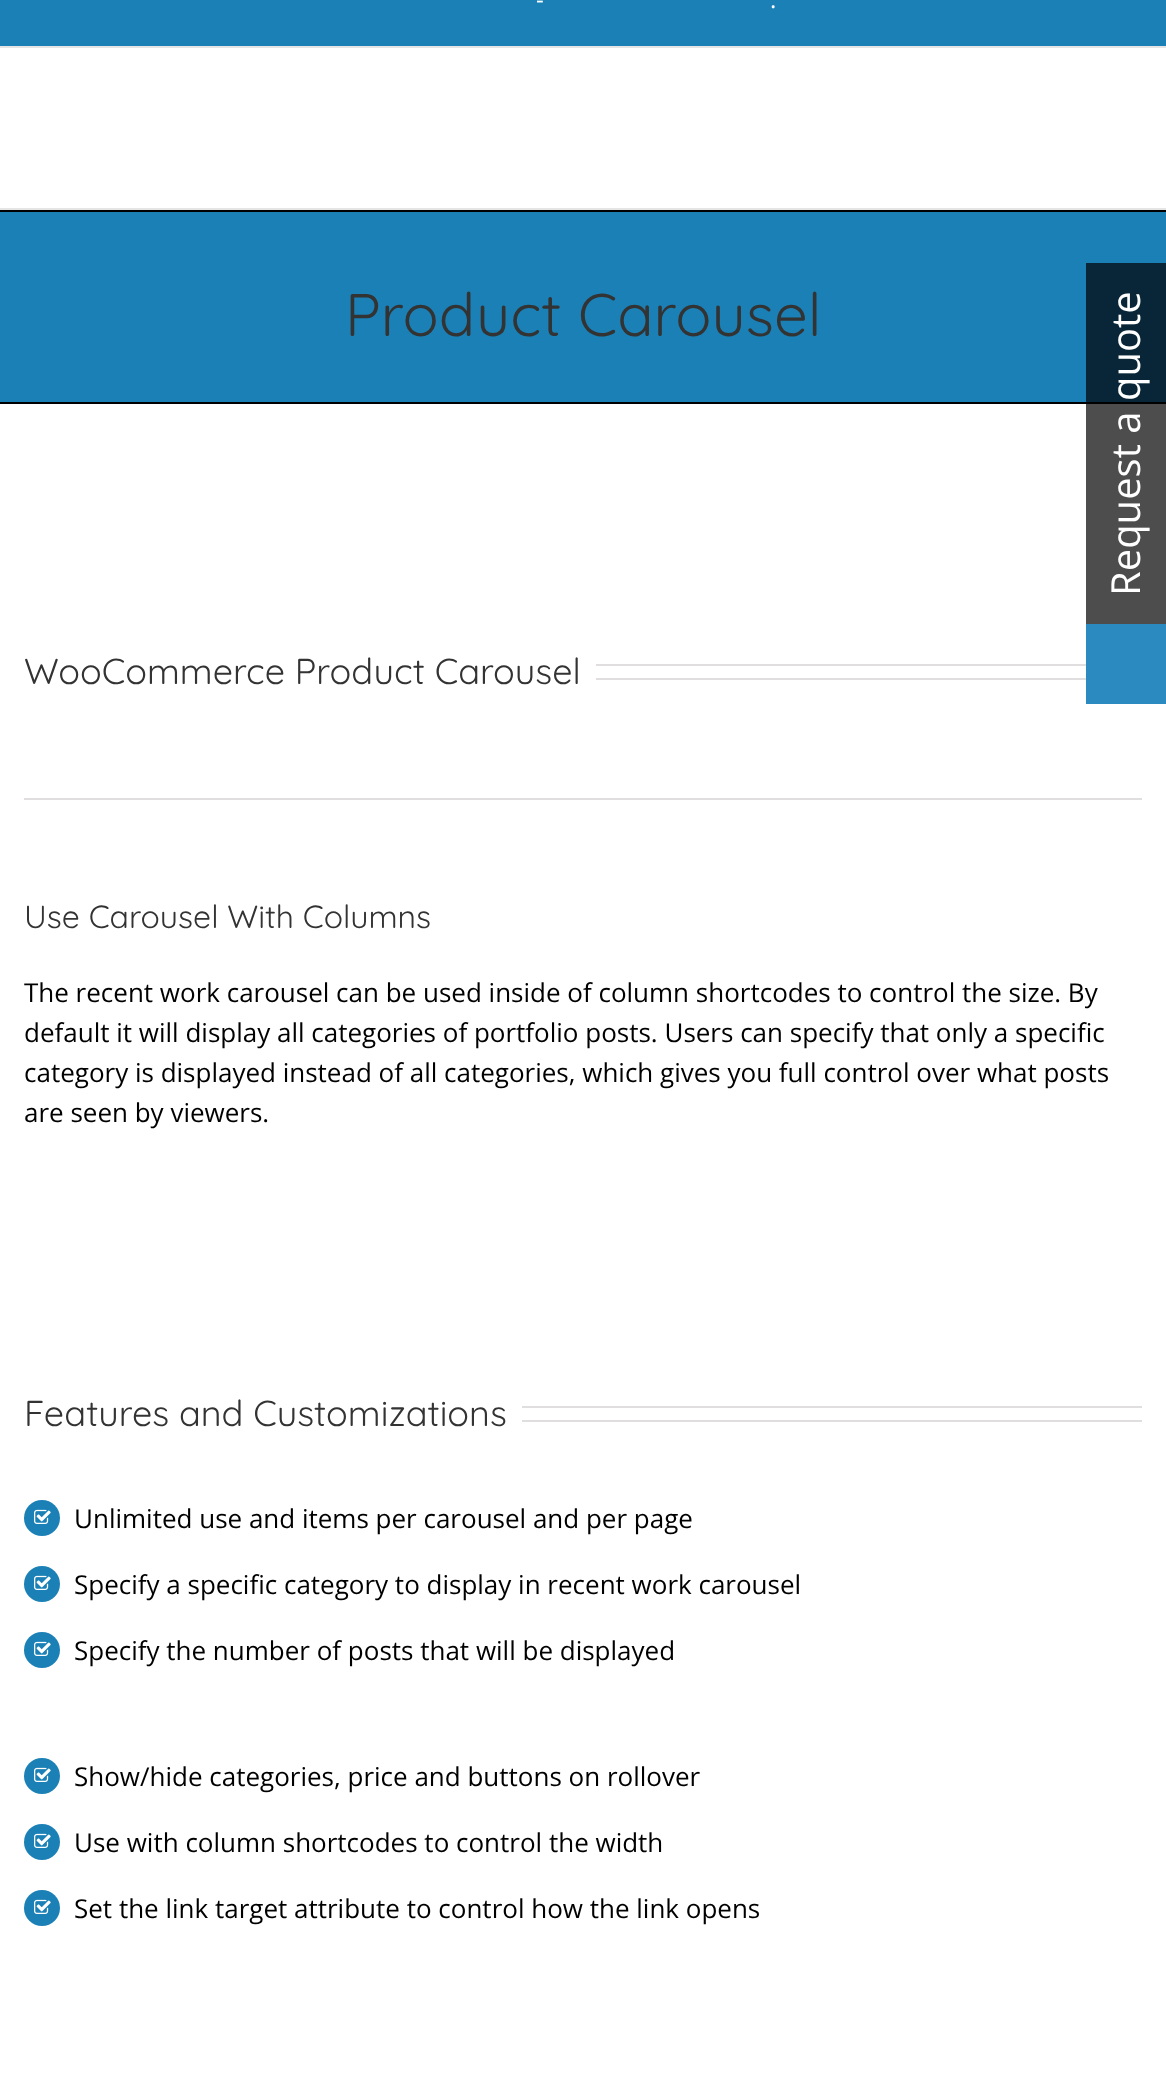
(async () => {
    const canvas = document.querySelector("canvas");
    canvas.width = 1166;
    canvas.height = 2080;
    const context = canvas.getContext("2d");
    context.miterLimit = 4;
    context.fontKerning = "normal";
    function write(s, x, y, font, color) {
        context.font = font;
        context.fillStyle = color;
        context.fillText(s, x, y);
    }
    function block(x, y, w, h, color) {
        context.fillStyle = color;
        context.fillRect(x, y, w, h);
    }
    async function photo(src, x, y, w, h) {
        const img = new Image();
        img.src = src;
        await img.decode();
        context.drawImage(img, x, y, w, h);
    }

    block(0, 0, 1166, 2080, "rgb(255, 255, 255)");
    block(1086, 404, 80, 220, "rgb(77, 77, 77)");
    block(0, 0, 1166, 46, "rgb(26, 128, 182)");
    block(0, 46, 1166, 2, "rgb(229, 229, 229)");
    write("-", 536, 8, "24px Open Sans", "rgb(255, 255, 255)");
    write(".", 770, 8, "24px Open Sans", "rgb(255, 255, 255)");
    block(0, 208, 1166, 2, "rgb(229, 229, 229)");
    block(0, 212, 1166, 190, "rgb(26, 128, 182)");
    block(1086, 263, 80, 139, "rgb(8, 38, 55)");
    block(0, 210, 1166, 2, "rgb(0, 0, 0)");
    block(0, 402, 1166, 2, "rgb(0, 0, 0)");
    write("Product Carousel", 345, 336, "60px Quicksand", "rgb(51, 51, 51)");
    write("WooCommerce Product Carousel", 24, 684, "36px Quicksand", "rgb(51, 51, 51)");
    block(596, 664, 490, 2, "rgb(224, 222, 222)");
    block(596, 678, 490, 2, "rgb(224, 222, 222)");
    block(24, 798, 1118, 2, "rgb(224, 222, 222)");
    write("Use Carousel With Columns", 24, 928, "32px Quicksand", "rgb(51, 51, 51)");
    write("The recent work carousel can be used inside of column shortcodes to control the size. By", 24, 1002, "26px Open Sans", "rgb(0, 0, 0)");
    write("default it will display all categories of portfolio posts. Users can specify that only a specific", 24, 1042, "26px Open Sans", "rgb(0, 0, 0)");
    write("category is displayed instead of all categories, which gives you full control over what posts", 24, 1082, "26px Open Sans", "rgb(0, 0, 0)");
    write("are seen by viewers.", 24, 1122, "26px Open Sans", "rgb(0, 0, 0)");
    write("Features and Customizations", 24, 1426, "36px Quicksand", "rgb(51, 51, 51)");
    block(522, 1406, 620, 2, "rgb(224, 222, 222)");
    block(522, 1420, 620, 2, "rgb(224, 222, 222)");
    context.fillStyle = "rgb(26, 128, 182)";
    context.beginPath();
    context.arc(42, 1518, 18, 0, Math.PI * 2);
    context.fill();
    await photo("media/1.png", 34, 1509, 17, 15);
    write("Unlimited use and items per carousel and per page", 74, 1528, "26px Open Sans", "rgb(0, 0, 0)");
    context.fillStyle = "rgb(26, 128, 182)";
    context.beginPath();
    context.arc(42, 1584, 18, 0, Math.PI * 2);
    context.fill();
    await photo("media/1.png", 34, 1575, 17, 15);
    write("Specify a specific category to display in recent work carousel", 74, 1594, "26px Open Sans", "rgb(0, 0, 0)");
    context.fillStyle = "rgb(26, 128, 182)";
    context.beginPath();
    context.arc(42, 1650, 18, 0, Math.PI * 2);
    context.fill();
    await photo("media/1.png", 34, 1641, 17, 15);
    write("Specify the number of posts that will be displayed", 74, 1660, "26px Open Sans", "rgb(0, 0, 0)");
    context.fillStyle = "rgb(26, 128, 182)";
    context.beginPath();
    context.arc(42, 1776, 18, 0, Math.PI * 2);
    context.fill();
    await photo("media/1.png", 34, 1767, 17, 15);
    write("Show/hide categories, price and buttons on rollover", 74, 1786, "26px Open Sans", "rgb(0, 0, 0)");
    context.fillStyle = "rgb(26, 128, 182)";
    context.beginPath();
    context.arc(42, 1842, 18, 0, Math.PI * 2);
    context.fill();
    await photo("media/1.png", 34, 1833, 17, 15);
    write("Use with column shortcodes to control the width", 74, 1852, "26px Open Sans", "rgb(0, 0, 0)");
    context.fillStyle = "rgb(26, 128, 182)";
    context.beginPath();
    context.arc(42, 1908, 18, 0, Math.PI * 2);
    context.fill();
    await photo("media/1.png", 34, 1899, 17, 15);
    write("Set the link target attribute to control how the link opens", 74, 1918, "26px Open Sans", "rgb(0, 0, 0)");
    context.font = "40px Open Sans";
    context.fillStyle = "rgb(255, 255, 255)";
    context.save();
    context.translate(1140, 596);
    context.rotate(-90 * Math.PI / 180);
    context.fillText("Request a quote", 0, 0);
    context.restore();
    block(1086, 624, 80, 80, "rgb(43, 138, 192)");
})();
